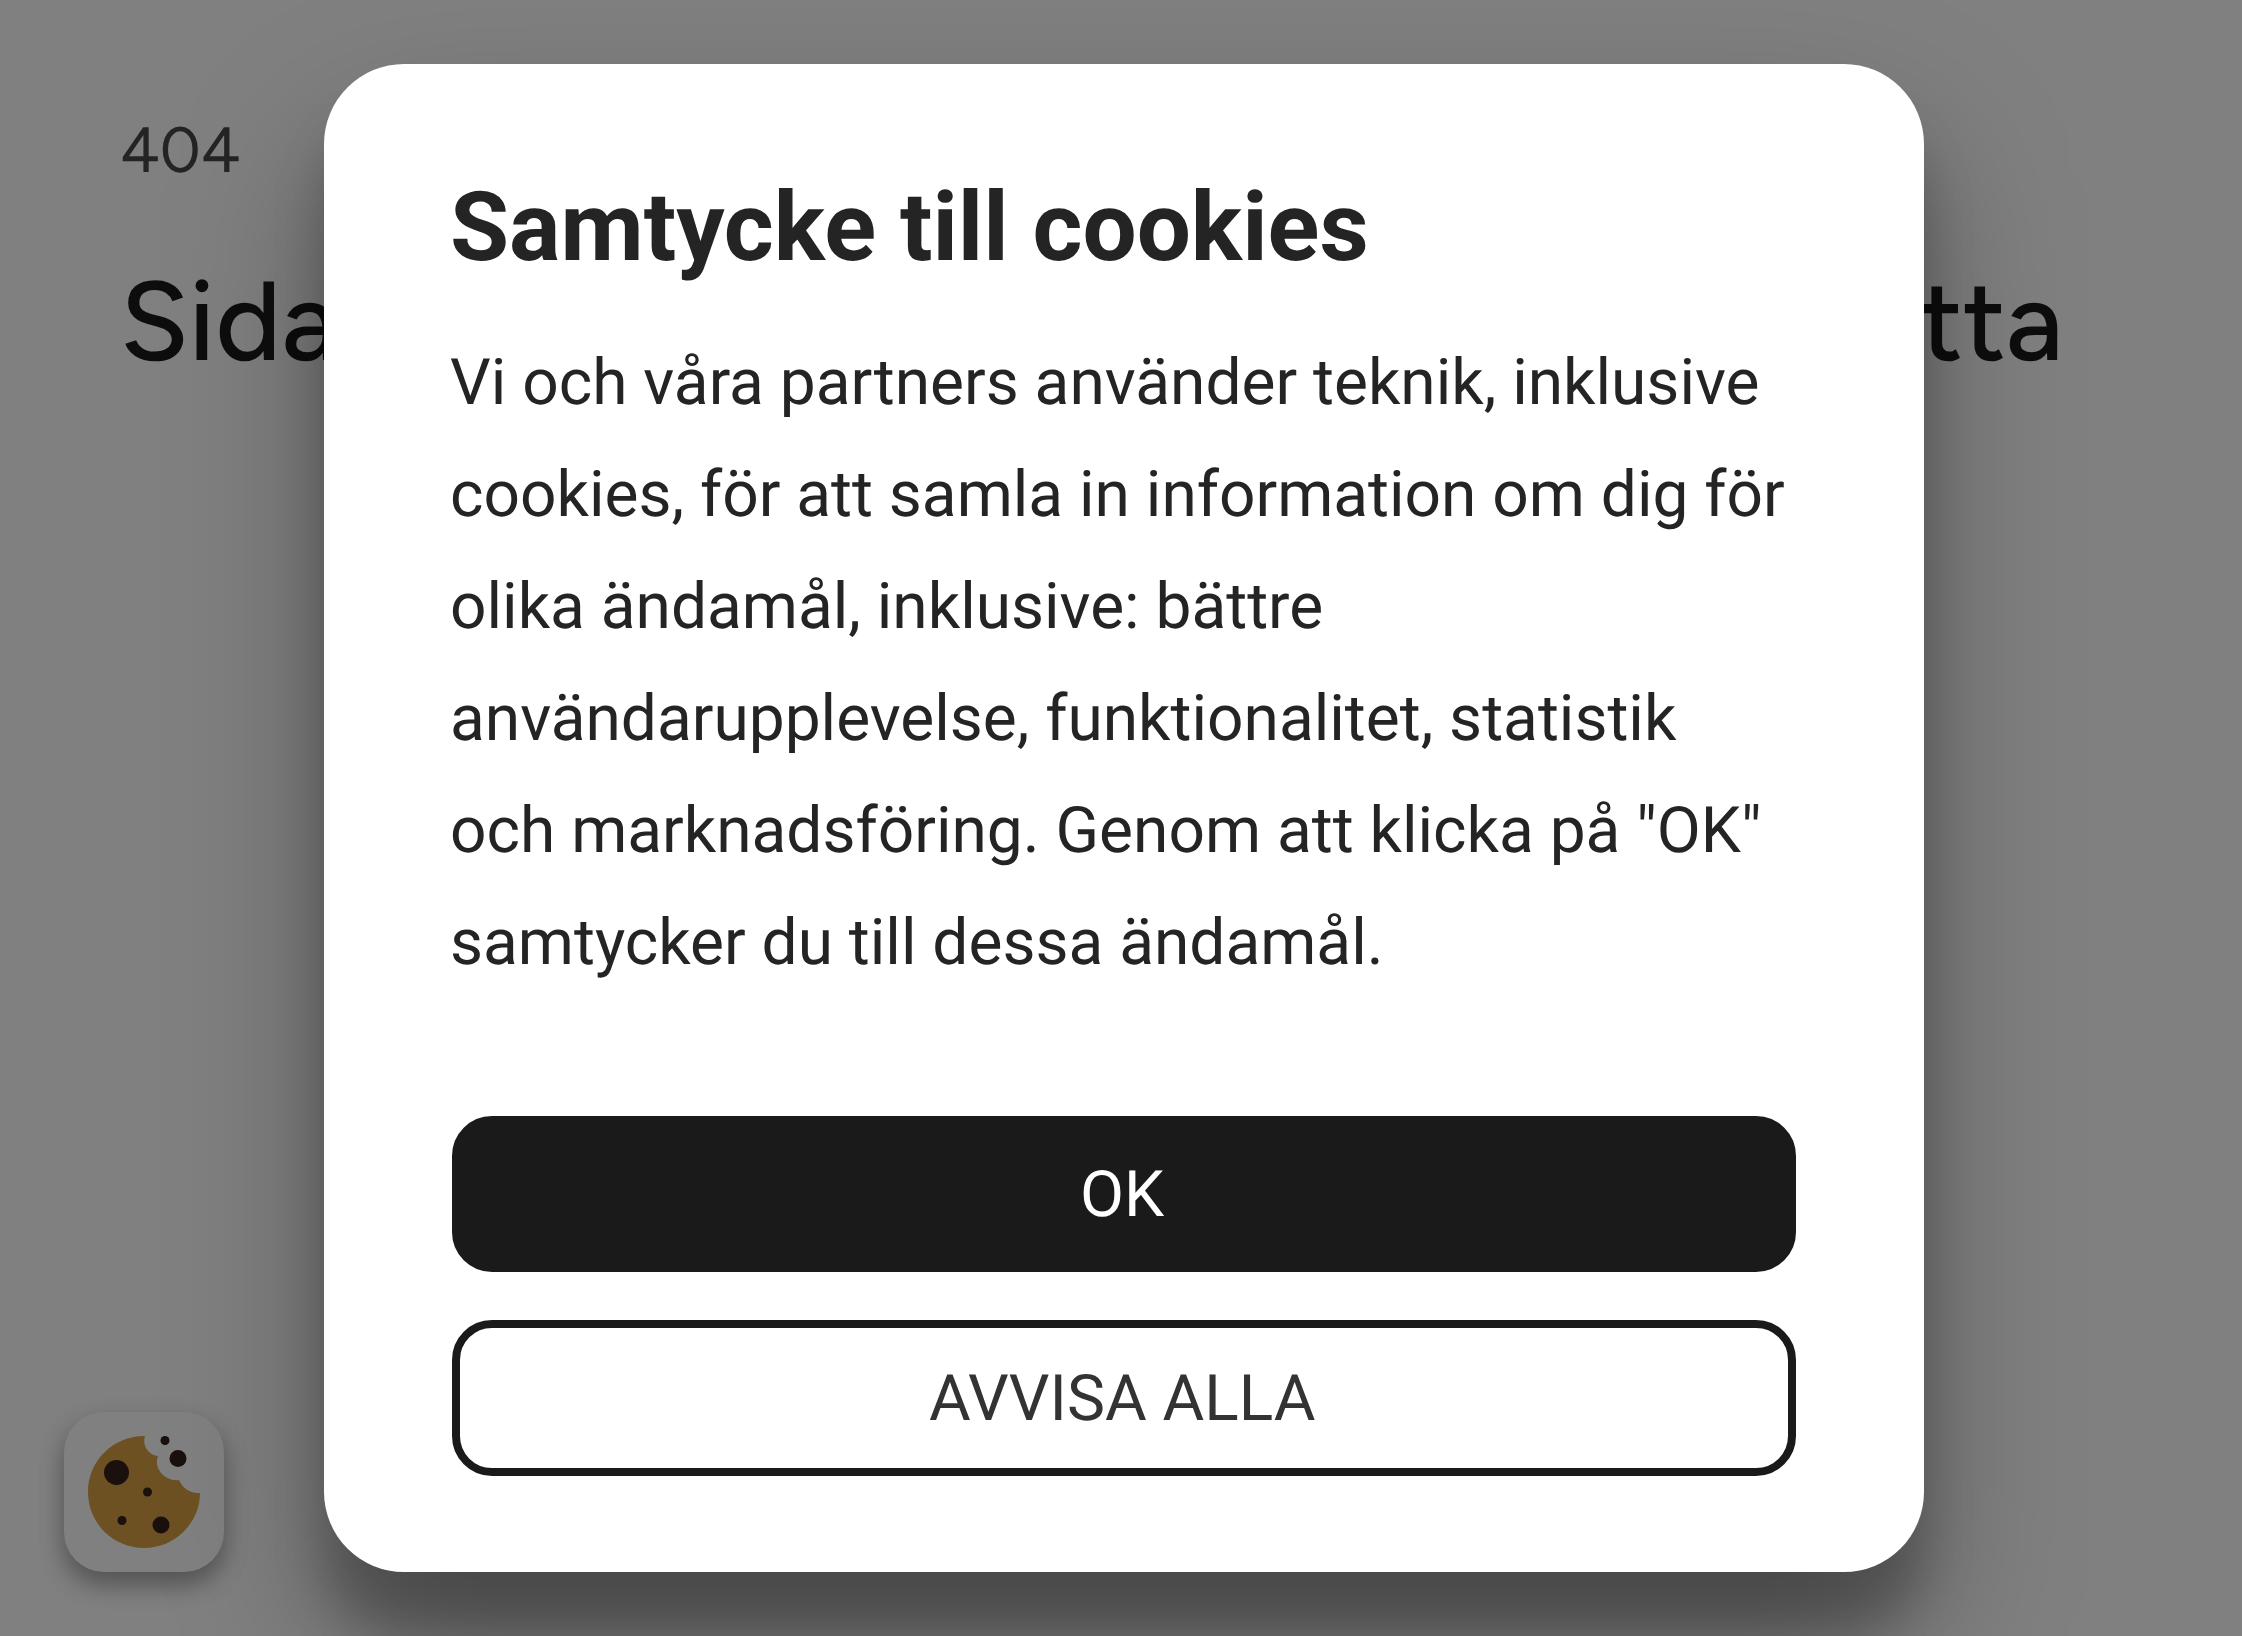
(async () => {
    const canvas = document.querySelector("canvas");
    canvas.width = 2242;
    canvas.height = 1636;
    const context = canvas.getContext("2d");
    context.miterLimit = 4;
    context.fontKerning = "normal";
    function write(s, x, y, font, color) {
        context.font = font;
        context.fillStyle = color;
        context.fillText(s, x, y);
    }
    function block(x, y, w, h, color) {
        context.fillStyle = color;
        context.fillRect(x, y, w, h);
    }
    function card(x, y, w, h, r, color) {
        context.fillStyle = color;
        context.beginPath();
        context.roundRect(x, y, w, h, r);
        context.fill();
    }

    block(0, 0, 2242, 1636, "rgb(128, 128, 128)");
    write("404", 120, 172, "64px Figtree", "rgb(36, 36, 36)");
    write("Sida", 120, 360, "500 112px Figtree", "rgb(13, 13, 13)");
    write("tta", 1920, 360, "500 112px Figtree", "rgb(13, 13, 13)");
    context.fillStyle = "rgba(0, 0, 0, 0.22)";
    context.filter = "blur(24px)";
    context.beginPath();
    context.roundRect(324, 124, 1600, 1508, 80);
    context.fill();
    context.filter = "none";
    context.fillStyle = "rgba(0, 0, 0, 0.23)";
    context.filter = "blur(12px)";
    context.beginPath();
    context.roundRect(64, 1424, 160, 160, 40);
    context.fill();
    context.filter = "none";
    context.fillStyle = "rgba(0, 0, 0, 0.16)";
    context.filter = "blur(12px)";
    context.beginPath();
    context.roundRect(64, 1424, 160, 160, 40);
    context.fill();
    context.filter = "none";
    card(64, 1412, 160, 160, 40, "rgb(128, 128, 128)");
    context.fillStyle = "rgb(109, 81, 35)";
    context.beginPath();
    context.moveTo(198, 1493);
    context.bezierCurveTo(189, 1493, 182, 1487, 179, 1480);
    context.bezierCurveTo(166, 1482, 153, 1469, 158, 1456);
    context.bezierCurveTo(148, 1455, 142, 1445, 145, 1436);
    context.lineTo(144, 1436);
    context.bezierCurveTo(113, 1436, 88, 1461, 88, 1492);
    context.bezierCurveTo(88, 1523, 113, 1548, 144, 1548);
    context.bezierCurveTo(175, 1548, 200, 1523, 200, 1493);
    context.closePath();
    context.fill();
    context.fillStyle = "rgb(26, 16, 13)";
    context.beginPath();
    context.arc(178, 1458.5, 8.5, 0, Math.PI * 2);
    context.fill();
    context.beginPath();
    context.arc(161, 1525, 8.5, 0, Math.PI * 2);
    context.fill();
    context.beginPath();
    context.arc(116.5, 1472.5, 12.5, 0, Math.PI * 2);
    context.fill();
    context.beginPath();
    context.arc(165, 1440.5, 4.5, 0, Math.PI * 2);
    context.fill();
    context.beginPath();
    context.arc(147.5, 1492, 4.5, 0, Math.PI * 2);
    context.fill();
    context.beginPath();
    context.arc(122, 1520.5, 4.5, 0, Math.PI * 2);
    context.fill();
    context.fillStyle = "rgba(0, 0, 0, 0.3)";
    context.filter = "blur(76px)";
    context.beginPath();
    context.roundRect(324, 140, 1600, 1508, 80);
    context.fill();
    context.filter = "none";
    card(324, 64, 1600, 1508, 80, "rgb(255, 255, 255)");
    write("Samtycke till cookies", 450, 260, "bold 96px Roboto", "rgb(36, 36, 36)");
    write("Vi och våra partners använder teknik, inklusive", 450, 404, "64px Roboto", "rgb(36, 36, 36)");
    write("cookies, för att samla in information om dig för", 450, 516, "64px Roboto", "rgb(36, 36, 36)");
    write("olika ändamål, inklusive: bättre", 450, 628, "64px Roboto", "rgb(36, 36, 36)");
    write("användarupplevelse, funktionalitet, statistik", 450, 740, "64px Roboto", "rgb(36, 36, 36)");
    write("och marknadsföring. Genom att klicka på \"OK\"", 450, 852, "64px Roboto", "rgb(36, 36, 36)");
    write("samtycker du till dessa ändamål.", 450, 964, "64px Roboto", "rgb(36, 36, 36)");
    context.fillStyle = "rgb(26, 26, 26)";
    context.beginPath();
    context.roundRect(456, 1120, 1336, 148, 36);
    context.fill();
    context.strokeStyle = "rgb(26, 26, 26)";
    context.lineWidth = 8;
    context.stroke();
    write("OK", 1080, 1216, "64px Roboto", "rgb(255, 255, 255)");
    context.beginPath();
    context.roundRect(456, 1324, 1336, 148, 36);
    context.stroke();
    write("AVVISA ALLA", 929, 1420, "64px Roboto", "rgb(51, 51, 51)");
})();
